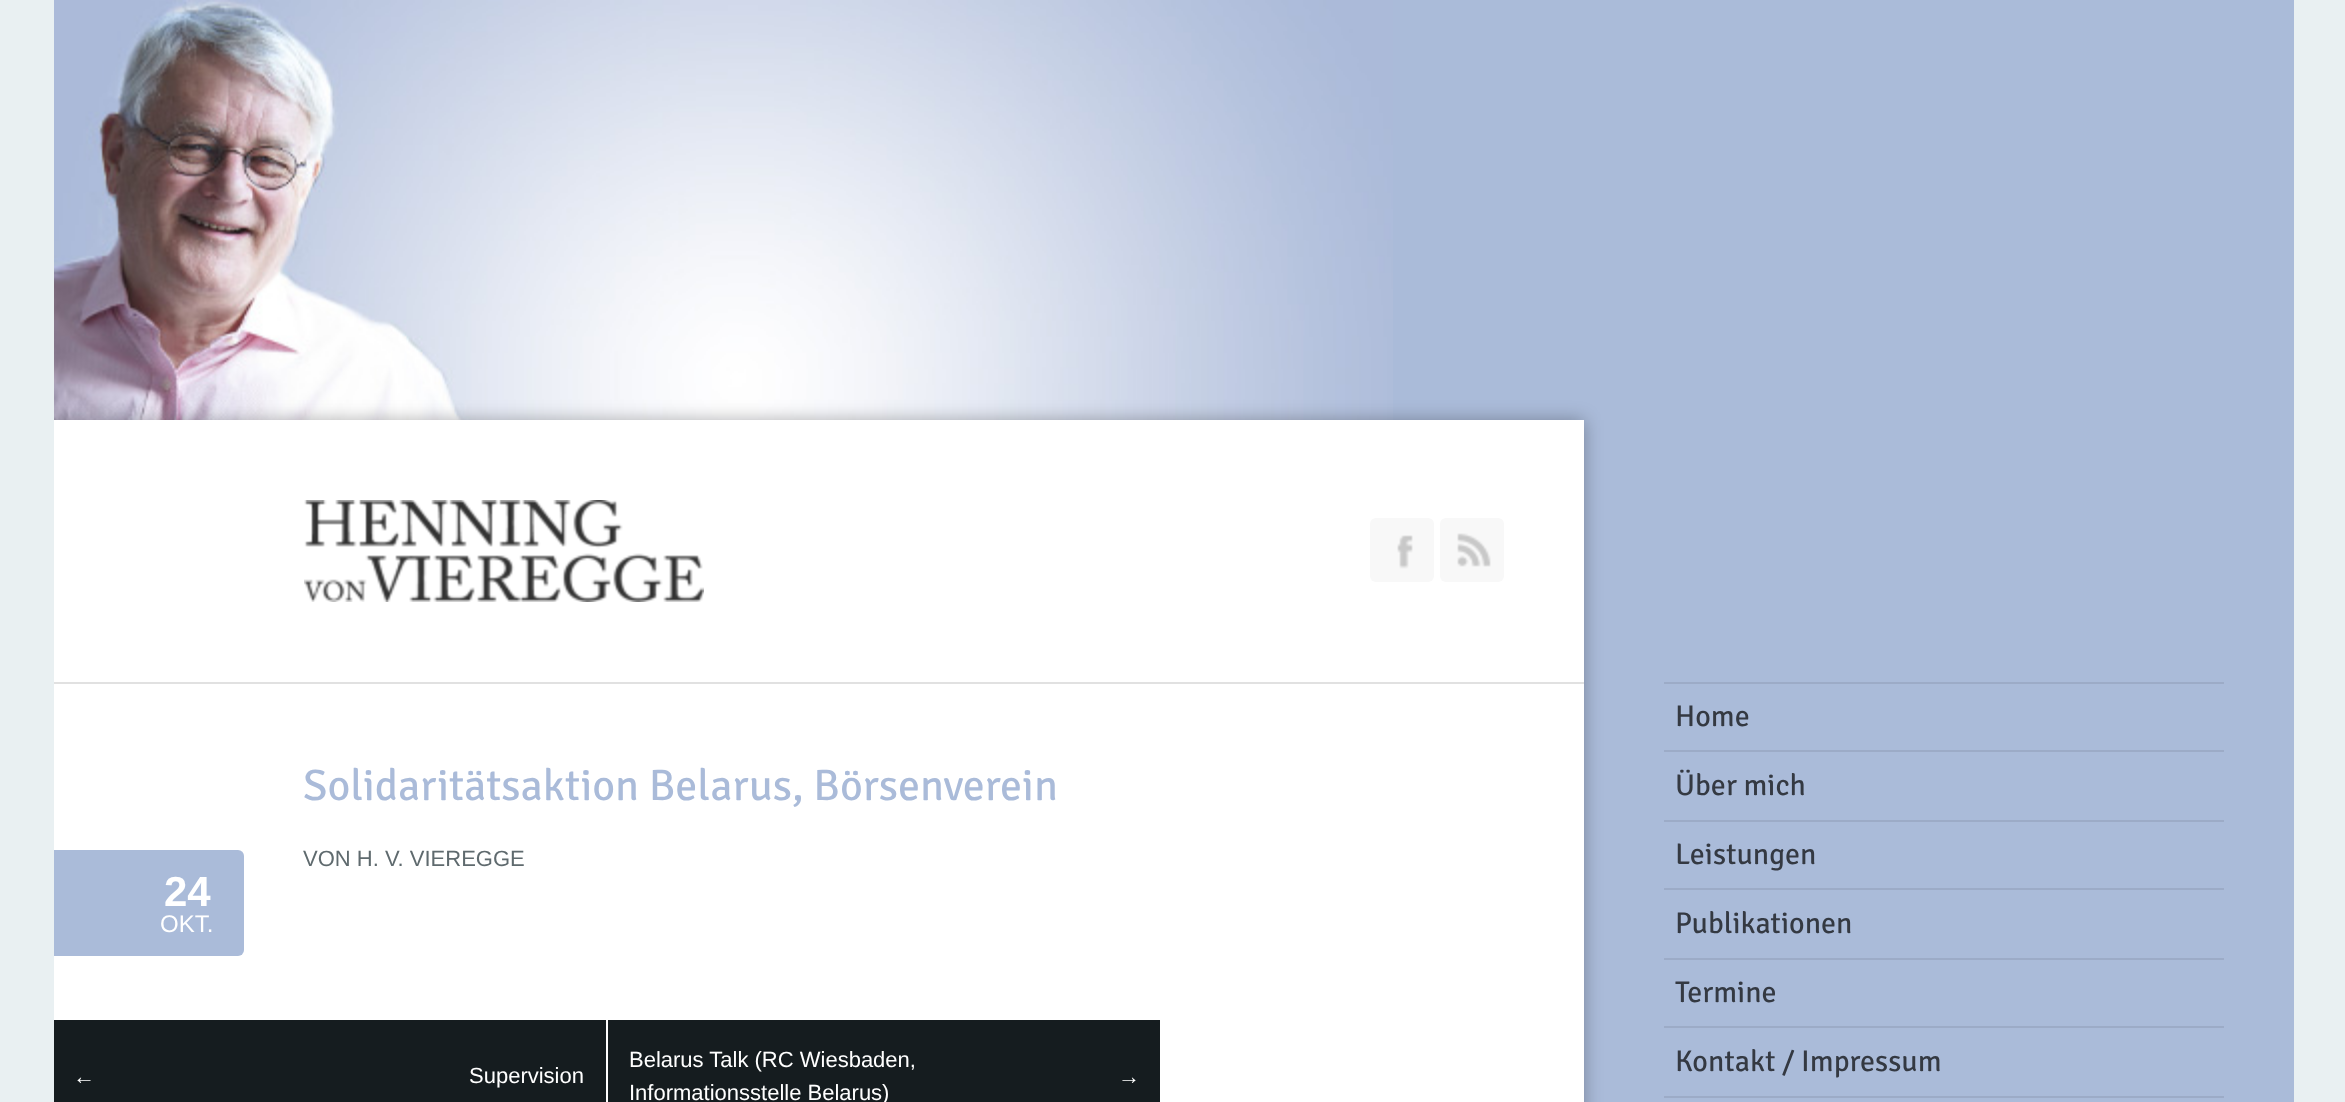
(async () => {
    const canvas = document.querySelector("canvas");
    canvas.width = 2345;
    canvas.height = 1102;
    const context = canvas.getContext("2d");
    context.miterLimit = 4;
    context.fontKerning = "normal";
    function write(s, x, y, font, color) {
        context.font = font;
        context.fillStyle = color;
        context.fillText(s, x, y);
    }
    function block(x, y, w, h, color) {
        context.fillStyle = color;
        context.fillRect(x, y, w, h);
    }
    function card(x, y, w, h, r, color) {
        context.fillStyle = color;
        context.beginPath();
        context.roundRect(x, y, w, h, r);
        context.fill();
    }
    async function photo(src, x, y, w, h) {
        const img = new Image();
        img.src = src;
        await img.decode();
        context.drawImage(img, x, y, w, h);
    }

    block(0, 0, 2345, 1102, "rgb(233, 240, 242)");
    block(1393, 0, 901, 420, "rgb(170, 187, 217)");
    await photo("media/1.png", 54, 0, 1339, 420);
    block(1584, 420, 710, 682, "rgb(170, 187, 217)");
    context.save();
    context.beginPath();
    context.rect(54, 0, 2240, 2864);
    context.clip();
    context.fillStyle = "rgba(0, 0, 0, 0.3)";
    context.filter = "blur(9px)";
    context.beginPath();
    context.rect(-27, 420, 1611, 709);
    context.fill();
    context.filter = "none";
    context.restore();
    block(54, 420, 1530, 682, "rgb(255, 255, 255)");
    await photo("media/2.png", 304, 500, 400, 102);
    card(1370, 518, 64, 64, 6, "rgb(248, 248, 248)");
    await photo("media/3.png", 1397, 535, 16, 34);
    card(1440, 518, 64, 64, 6, "rgb(248, 248, 248)");
    await photo("media/4.png", 1457, 533, 34, 34);
    block(54, 682, 1530, 2, "rgb(225, 225, 225)");
    write("Solidaritätsaktion Belarus, Börsenverein", 303, 800, "44px Signika Negative", "rgb(170, 187, 217)");
    write("VON H. V. VIEREGGE", 303, 866, "22px Liberation Sans", "rgb(95, 106, 110)");
    context.fillStyle = "rgb(170, 187, 217)";
    context.beginPath();
    context.roundRect(54, 850, 190, 106, [0, 6, 6, 0]);
    context.fill();
    write("24", 164, 906, "bold 42px Liberation Sans", "rgb(255, 255, 255)");
    write("OKT.", 160, 932, "24px Liberation Sans", "rgb(255, 255, 255)");
    block(54, 1020, 1106, 82, "rgb(21, 28, 31)");
    write("←", 73, 1084, "22px Liberation Sans", "rgb(255, 255, 255)");
    write("Supervision", 469, 1083, "22px Liberation Sans", "rgb(255, 255, 255)");
    block(606, 1020, 2, 82, "rgb(255, 255, 255)");
    write("Belarus Talk (RC Wiesbaden,", 629, 1067, "22px Liberation Sans", "rgb(255, 255, 255)");
    write("Informationsstelle Belarus)", 629, 1100, "22px Liberation Sans", "rgb(255, 255, 255)");
    write("→", 1118, 1084, "22px Liberation Sans", "rgb(255, 255, 255)");
    block(1664, 682, 560, 2, "rgb(156, 171, 199)");
    block(1664, 750, 560, 2, "rgb(156, 171, 199)");
    write("Home", 1675, 726, "30px Signika Negative", "rgb(52, 57, 66)");
    block(1664, 820, 560, 2, "rgb(156, 171, 199)");
    write("Über mich", 1675, 795, "30px Signika Negative", "rgb(52, 57, 66)");
    block(1664, 888, 560, 2, "rgb(156, 171, 199)");
    write("Leistungen", 1675, 864, "30px Signika Negative", "rgb(52, 57, 66)");
    block(1664, 958, 560, 2, "rgb(156, 171, 199)");
    write("Publikationen", 1675, 933, "30px Signika Negative", "rgb(52, 57, 66)");
    block(1664, 1026, 560, 2, "rgb(156, 171, 199)");
    write("Termine", 1675, 1002, "30px Signika Negative", "rgb(52, 57, 66)");
    block(1664, 1096, 560, 2, "rgb(156, 171, 199)");
    write("Kontakt / Impressum", 1675, 1071, "30px Signika Negative", "rgb(52, 57, 66)");
})();
